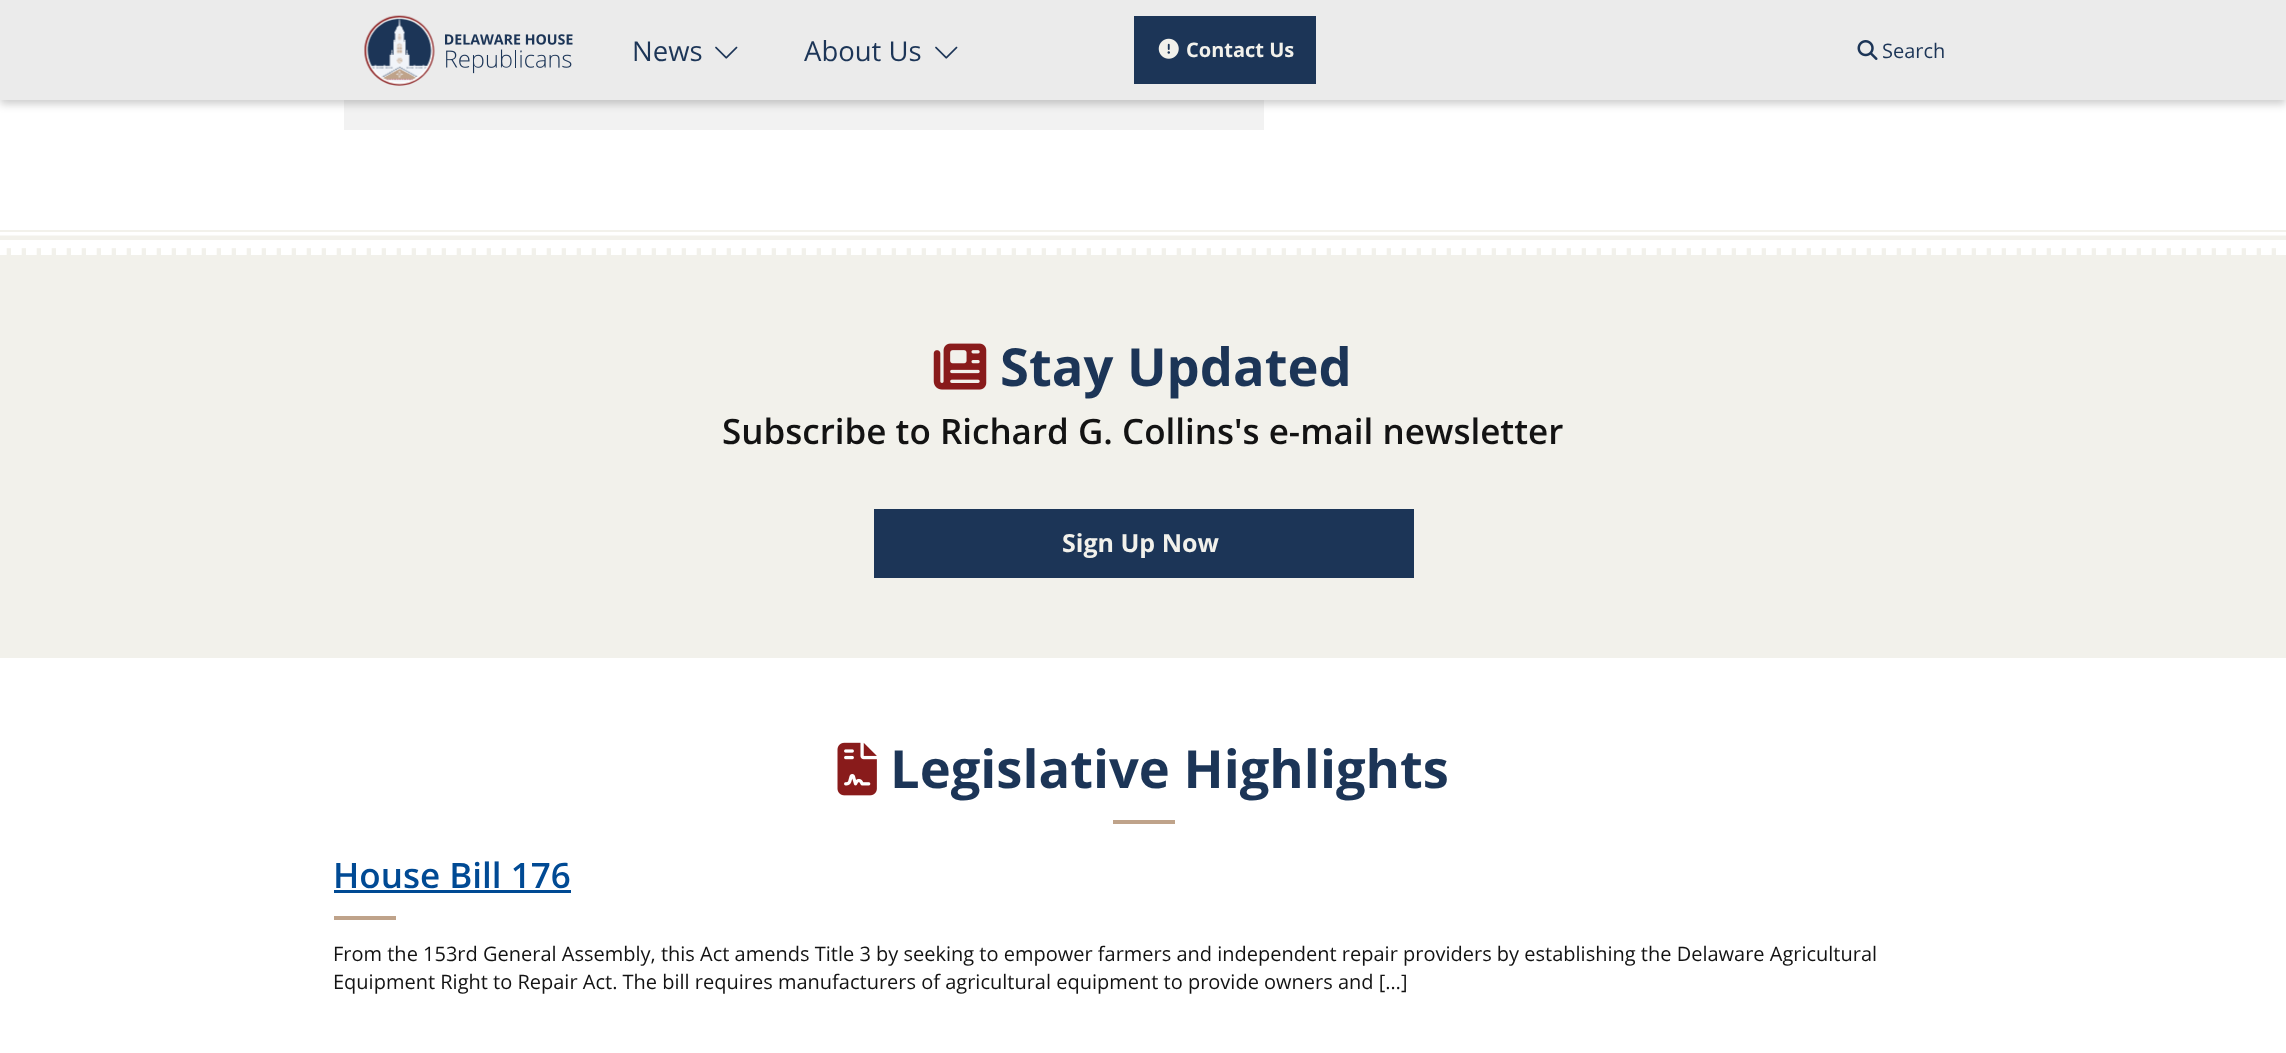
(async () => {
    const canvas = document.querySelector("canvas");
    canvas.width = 2286;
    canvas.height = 1053;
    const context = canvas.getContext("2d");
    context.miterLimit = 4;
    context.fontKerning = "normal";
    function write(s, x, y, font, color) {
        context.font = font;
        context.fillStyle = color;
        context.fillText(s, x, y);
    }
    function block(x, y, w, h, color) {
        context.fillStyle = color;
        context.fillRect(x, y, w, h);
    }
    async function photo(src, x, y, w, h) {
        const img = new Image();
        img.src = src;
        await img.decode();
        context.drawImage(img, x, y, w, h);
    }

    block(0, 0, 2286, 1053, "rgb(255, 255, 255)");
    block(344, 100, 920, 30, "rgb(242, 242, 242)");
    context.fillStyle = "rgba(0, 0, 0, 0.2)";
    context.filter = "blur(4px)";
    context.beginPath();
    context.rect(0, 4, 2286, 100);
    context.fill();
    context.filter = "none";
    block(0, 0, 2286, 100, "rgb(235, 235, 235)");
    await photo("media/1.png", 364, 15, 71, 71);
    await photo("media/2.png", 445, 34, 128, 40);
    write("News", 632, 61, "27.5px Open Sans", "rgb(28, 53, 87)");
    await photo("media/3.png", 715, 46, 23, 13);
    write("About Us", 804, 61, "27.5px Open Sans", "rgb(28, 53, 87)");
    await photo("media/3.png", 935, 46, 23, 13);
    block(1134, 16, 182, 68, "rgb(28, 53, 87)");
    await photo("media/4.png", 1158, 38, 21, 21);
    write("Contact Us", 1186, 57, "bold 20px Open Sans", "rgb(242, 241, 235)");
    await photo("media/5.png", 1857, 40, 21, 20);
    write("Search", 1882, 58, "20px Open Sans", "rgb(28, 53, 87)");
    await photo("media/6.png", 0, 230, 2286, 25);
    block(0, 255, 2286, 403, "rgb(242, 241, 235)");
    await photo("media/7.png", 933, 343, 54, 47);
    write("Stay Updated", 1000, 386, "bold 52.5px Open Sans", "rgb(28, 53, 87)");
    write("Subscribe to Richard G. Collins's e-mail newsletter", 722, 444, "600 35px Open Sans", "rgb(19, 19, 19)");
    block(874, 509, 540, 69, "rgb(28, 53, 87)");
    write("Sign Up Now", 1062, 552, "bold 25px Open Sans", "rgb(242, 241, 235)");
    await photo("media/8.png", 837, 742, 40, 54);
    write("Legislative Highlights", 890, 788, "bold 52.5px Open Sans", "rgb(28, 53, 87)");
    block(1113, 820, 62, 4, "rgb(191, 163, 138)");
    write("House Bill 176", 333, 888, "600 35px Open Sans", "rgb(0, 74, 148)");
    block(334, 890, 237, 3, "rgb(0, 74, 148)");
    block(334, 916, 62, 4, "rgb(191, 163, 138)");
    write("From the 153rd General Assembly, this Act amends Title 3 by seeking to empower farmers and independent repair providers by establishing the Delaware Agricultural", 333, 961, "20px Open Sans", "rgb(19, 19, 19)");
    write("Equipment Right to Repair Act. The bill requires manufacturers of agricultural equipment to provide owners and […]", 333, 989, "20px Open Sans", "rgb(19, 19, 19)");
})();
